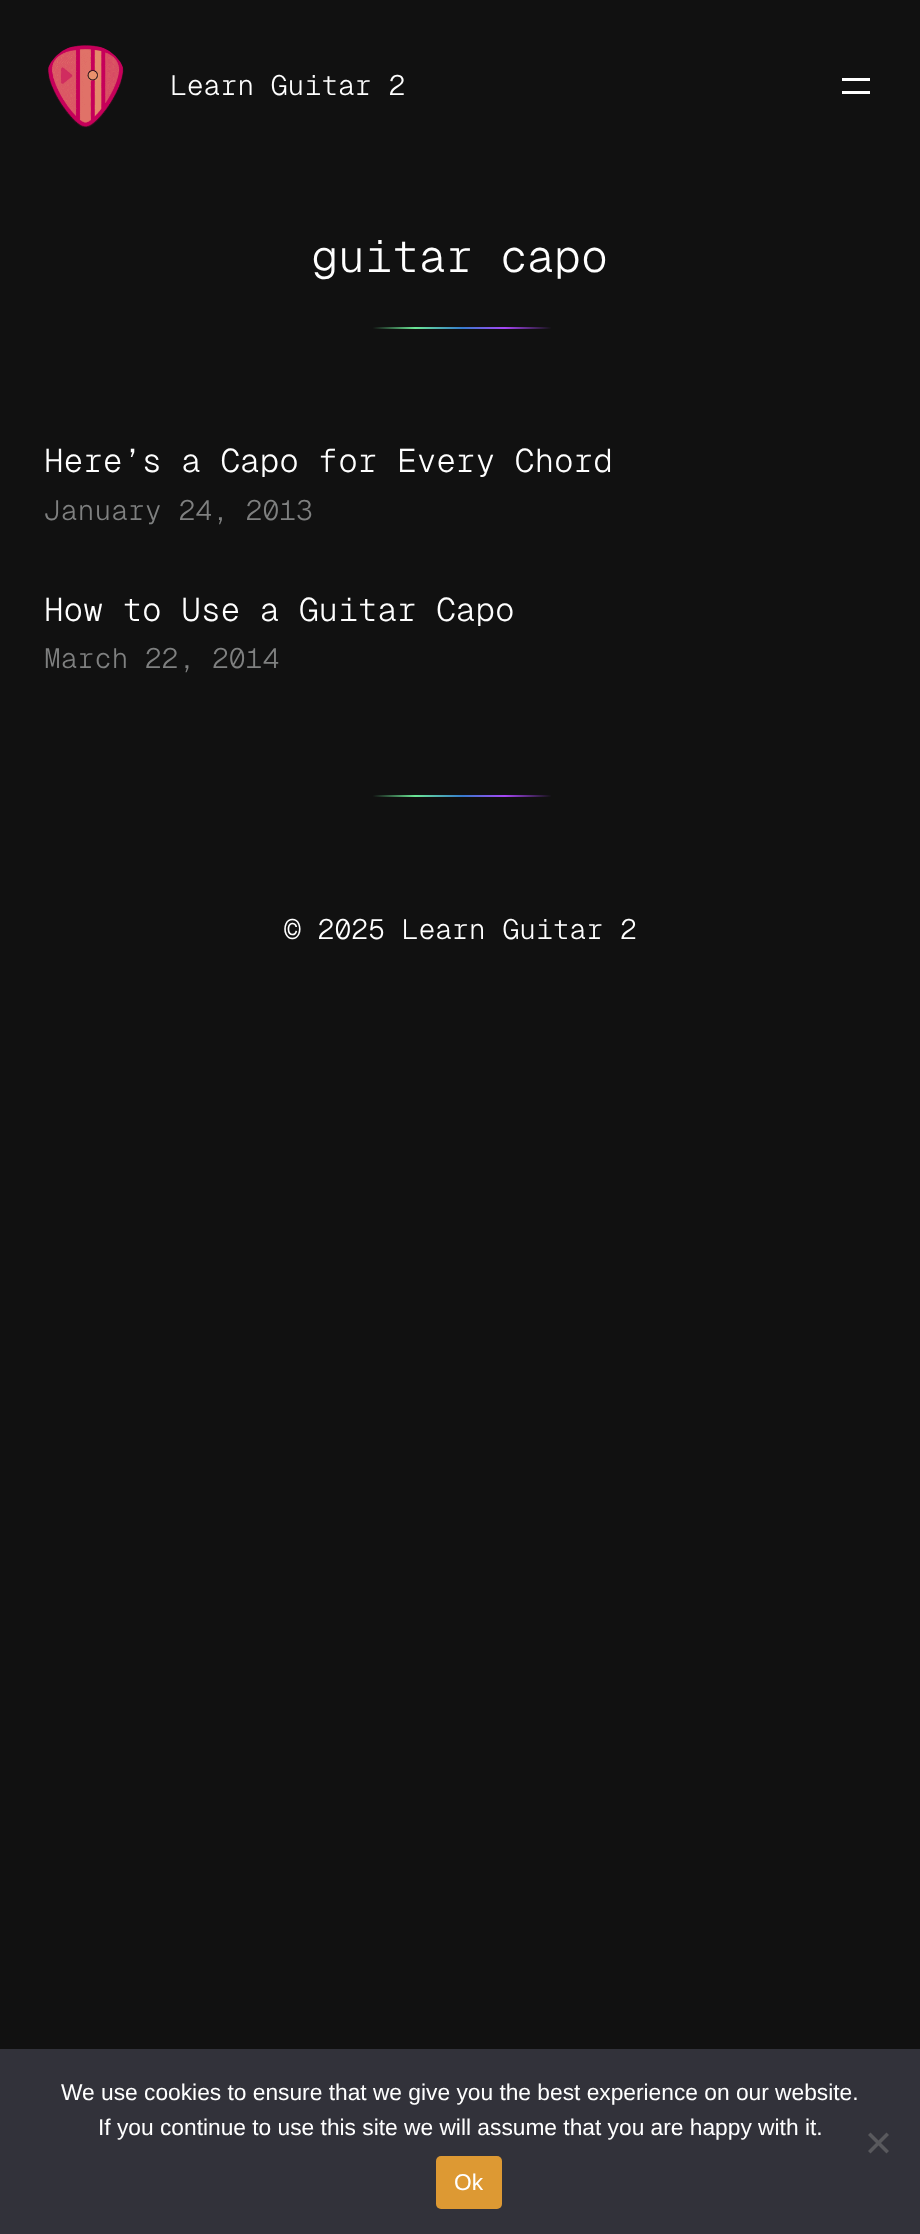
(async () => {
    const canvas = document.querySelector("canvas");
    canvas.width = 920;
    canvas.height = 2234;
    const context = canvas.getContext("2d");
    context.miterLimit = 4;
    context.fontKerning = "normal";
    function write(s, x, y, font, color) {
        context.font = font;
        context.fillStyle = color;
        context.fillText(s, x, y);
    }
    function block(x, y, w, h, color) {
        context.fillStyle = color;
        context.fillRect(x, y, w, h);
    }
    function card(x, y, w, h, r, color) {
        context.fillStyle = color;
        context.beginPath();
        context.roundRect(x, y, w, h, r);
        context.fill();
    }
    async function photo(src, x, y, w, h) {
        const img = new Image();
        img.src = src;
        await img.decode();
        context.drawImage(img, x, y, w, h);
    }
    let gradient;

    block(0, 0, 920, 2234, "rgb(17, 17, 17)");
    await photo("media/1.png", 47, 45, 77, 83);
    write("Learn Guitar 2", 170, 95, "300 28px Geist Mono", "rgb(255, 255, 255)");
    block(842, 78, 28, 3, "rgb(255, 255, 255)");
    block(842, 91, 28, 3, "rgb(255, 255, 255)");
    write("guitar capo", 311, 272, "300 45px Geist Mono", "rgb(255, 255, 255)");
    gradient = context.createLinearGradient(348, 328, 572, 328);
    gradient.addColorStop(0.11, "rgb(17, 17, 17)");
    gradient.addColorStop(0.3, "rgb(107, 231, 149)");
    gradient.addColorStop(0.51, "rgb(54, 124, 207)");
    gradient.addColorStop(0.7, "rgb(167, 70, 246)");
    gradient.addColorStop(0.91, "rgb(17, 17, 17)");
    context.fillStyle = gradient;
    context.fillRect(373, 327, 178, 2);
    write("Here’s a Capo for Every Chord", 44, 472, "300 32.7px Geist Mono", "rgb(255, 255, 255)");
    write("January 24, 2013", 44, 520, "300 28px Geist Mono", "rgb(127, 128, 128)");
    write("How to Use a Guitar Capo", 44, 621, "300 32.7px Geist Mono", "rgb(255, 255, 255)");
    write("March 22, 2014", 44, 668, "300 28px Geist Mono", "rgb(127, 128, 128)");
    gradient = context.createLinearGradient(348, 795, 572, 795);
    gradient.addColorStop(0.11, "rgb(17, 17, 17)");
    gradient.addColorStop(0.3, "rgb(107, 231, 149)");
    gradient.addColorStop(0.51, "rgb(54, 124, 207)");
    gradient.addColorStop(0.7, "rgb(167, 70, 246)");
    gradient.addColorStop(0.91, "rgb(17, 17, 17)");
    context.fillStyle = gradient;
    context.fillRect(373, 795, 178, 2);
    write("© 2025 Learn Guitar 2", 284, 939, "300 28px Geist Mono", "rgb(255, 255, 255)");
    block(0, 2049, 920, 185, "rgb(50, 50, 58)");
    write("We use cookies to ensure that we give you the best experience on our website.", 61, 2100, "22.75px Liberation Sans", "rgb(255, 255, 255)");
    write("If you continue to use this site we will assume that you are happy with it.", 98, 2135, "22.75px Liberation Sans", "rgb(255, 255, 255)");
    context.fillStyle = "rgb(89, 89, 93)";
    context.beginPath();
    context.moveTo(886.5, 2132.5);
    context.lineTo(889, 2135);
    context.lineTo(870.5, 2153.5);
    context.lineTo(868, 2151);
    context.closePath();
    context.fill();
    context.beginPath();
    context.moveTo(868, 2135);
    context.lineTo(870.5, 2132.5);
    context.lineTo(889, 2151);
    context.lineTo(886.5, 2153.5);
    context.closePath();
    context.fill();
    card(436, 2156, 66, 53, 5, "rgb(221, 153, 51)");
    write("Ok", 454, 2190, "22.75px Liberation Sans", "rgb(255, 255, 255)");
})();
